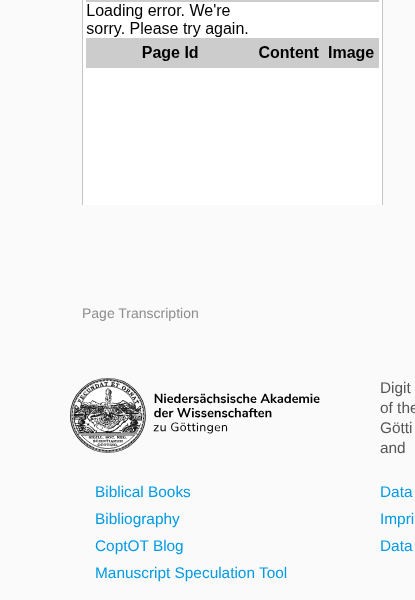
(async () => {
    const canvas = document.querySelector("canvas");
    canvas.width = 415;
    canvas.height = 600;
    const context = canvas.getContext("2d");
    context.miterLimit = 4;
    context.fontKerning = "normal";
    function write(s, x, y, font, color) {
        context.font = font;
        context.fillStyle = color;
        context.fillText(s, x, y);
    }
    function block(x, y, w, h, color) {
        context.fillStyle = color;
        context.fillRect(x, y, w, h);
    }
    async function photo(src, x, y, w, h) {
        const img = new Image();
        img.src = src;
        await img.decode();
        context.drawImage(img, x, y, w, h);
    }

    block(0, 0, 415, 600, "rgb(250, 250, 250)");
    await photo("media/1.png", 82, 0, 301, 205);
    write("Page Transcription", 82, 318, "14px Liberation Sans", "rgb(141, 141, 141)");
    await photo("media/2.png", 70, 378, 250, 75);
    write("Digit", 380, 393, "15.4px Liberation Sans", "rgb(85, 85, 85)");
    write("of the", 380, 413, "15.4px Liberation Sans", "rgb(85, 85, 85)");
    write("Götti", 380, 433, "15.4px Liberation Sans", "rgb(85, 85, 85)");
    write("and", 380, 453, "15.4px Liberation Sans", "rgb(85, 85, 85)");
    write("Biblical Books", 95, 497, "15.4px Liberation Sans", "rgb(0, 154, 229)");
    write("Bibliography", 95, 524, "15.4px Liberation Sans", "rgb(0, 154, 229)");
    write("CoptOT Blog", 95, 551, "15.4px Liberation Sans", "rgb(0, 154, 229)");
    write("Manuscript Speculation Tool", 95, 578, "15.4px Liberation Sans", "rgb(0, 154, 229)");
    write("Data", 380, 497, "15.4px Liberation Sans", "rgb(0, 154, 229)");
    write("Impri", 380, 524, "15.4px Liberation Sans", "rgb(0, 154, 229)");
    write("Data", 380, 551, "15.4px Liberation Sans", "rgb(0, 154, 229)");
})();
